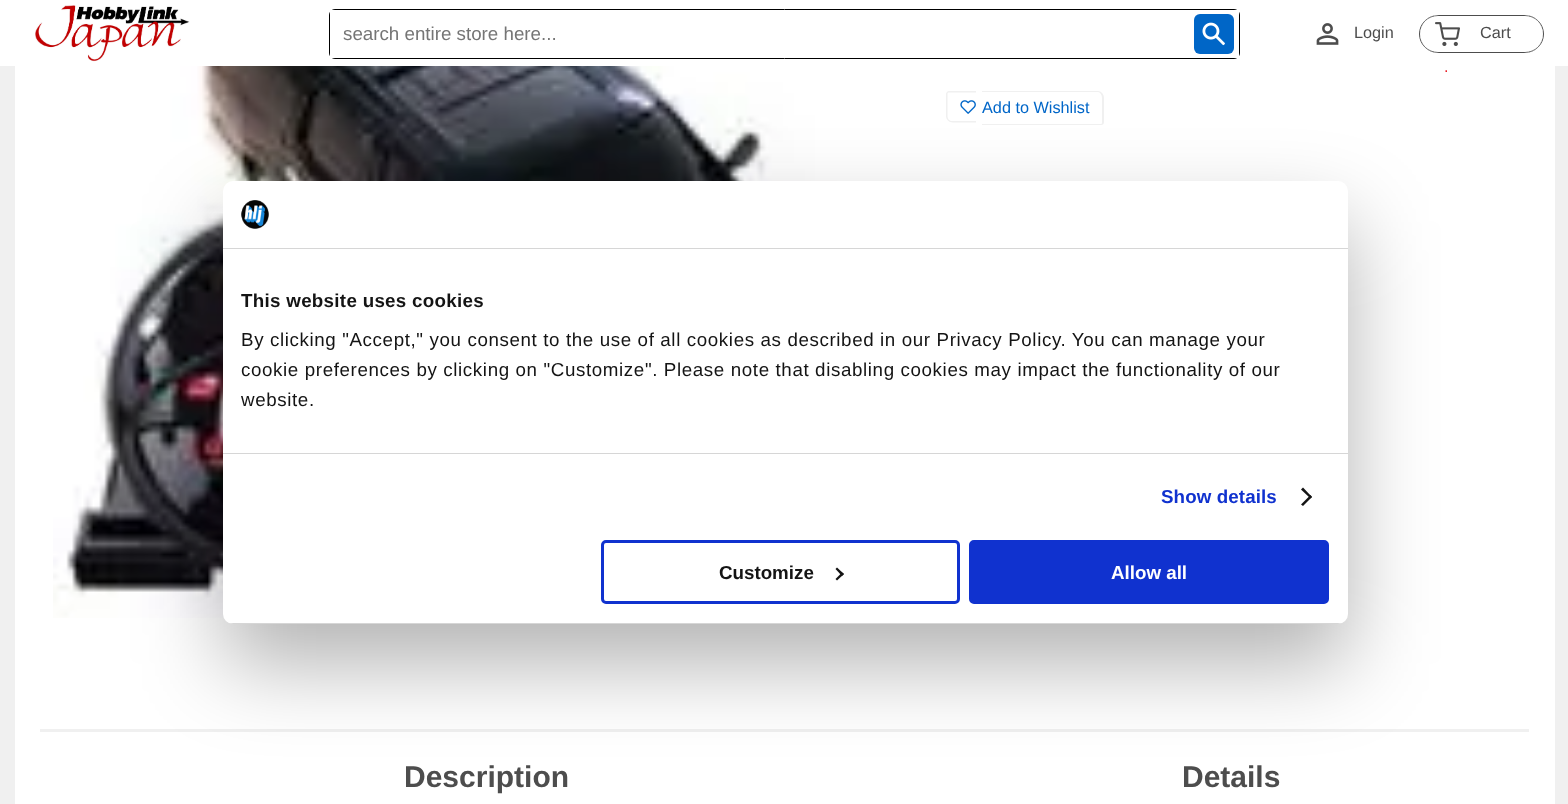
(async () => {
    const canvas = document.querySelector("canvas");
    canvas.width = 1568;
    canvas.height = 804;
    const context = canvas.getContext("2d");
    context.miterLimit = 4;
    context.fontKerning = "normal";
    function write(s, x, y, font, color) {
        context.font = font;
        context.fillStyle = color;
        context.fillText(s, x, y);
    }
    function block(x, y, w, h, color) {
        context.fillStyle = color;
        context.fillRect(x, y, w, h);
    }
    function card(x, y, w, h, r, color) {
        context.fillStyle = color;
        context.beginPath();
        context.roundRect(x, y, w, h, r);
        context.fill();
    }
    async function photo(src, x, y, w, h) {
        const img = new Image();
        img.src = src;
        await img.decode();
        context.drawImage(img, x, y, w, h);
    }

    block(0, 0, 1568, 804, "rgb(240, 240, 240)");
    block(0, 0, 1568, 66, "rgb(255, 255, 255)");
    await photo("media/1.png", 35, 5, 155, 57);
    context.beginPath();
    context.roundRect(329.5, 9.5, 910, 49, 5.5);
    context.strokeStyle = "rgb(0, 0, 0)";
    context.stroke();
    block(330, 10, 909, 48, "rgb(255, 255, 255)");
    write("search entire store here...", 343, 40, "18.75px Liberation Sans", "rgb(117, 117, 117)");
    card(1194, 14, 40, 40, 6, "rgb(0, 102, 199)");
    await photo("media/2.png", 1202, 22, 23, 24);
    await photo("media/3.png", 1316, 23, 23, 22);
    write("Login", 1354, 38, "16.25px Liberation Sans", "rgb(77, 77, 77)");
    context.beginPath();
    context.roundRect(1419.5, 15.5, 124, 37, 18.5);
    context.strokeStyle = "rgb(77, 77, 77)";
    context.stroke();
    context.save();
    context.beginPath();
    context.moveTo(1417, 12);
    context.lineTo(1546, 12);
    context.lineTo(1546, 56);
    context.lineTo(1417, 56);
    context.closePath();
    context.moveTo(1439, 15);
    context.lineTo(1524, 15);
    context.bezierCurveTo(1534.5, 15, 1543, 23.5, 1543, 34);
    context.bezierCurveTo(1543, 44.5, 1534.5, 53, 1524, 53);
    context.lineTo(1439, 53);
    context.bezierCurveTo(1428.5, 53, 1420, 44.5, 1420, 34);
    context.bezierCurveTo(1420, 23.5, 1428.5, 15, 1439, 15);
    context.closePath();
    context.clip("evenodd");
    context.fillStyle = "rgb(255, 255, 255)";
    context.filter = "blur(0.5px)";
    context.beginPath();
    context.roundRect(1420, 15, 123, 38, 19);
    context.fill();
    context.filter = "none";
    context.restore();
    await photo("media/4.png", 1435, 22, 25, 24);
    write("Cart", 1480, 38, "16.25px Liberation Sans", "rgb(77, 77, 77)");
    block(15, 66, 1540, 738, "rgb(255, 255, 255)");
    await photo("media/5.png", 53, 66, 868, 552);
    write(".", 1444, 72, "16.25px Liberation Sans", "rgb(233, 30, 38)");
    context.fillStyle = "rgb(240, 240, 240)";
    context.beginPath();
    context.moveTo(949, 91);
    context.lineTo(976, 91);
    context.lineTo(976, 122.5);
    context.lineTo(952.5, 122.5);
    context.bezierCurveTo(949, 122.5, 946, 119.5, 946, 116);
    context.lineTo(946, 94);
    context.bezierCurveTo(946, 92.5, 947.5, 91, 949, 91);
    context.closePath();
    context.moveTo(949, 92.5);
    context.lineTo(976, 92.5);
    context.lineTo(976, 121);
    context.lineTo(952.5, 121);
    context.bezierCurveTo(949.5, 121, 947.5, 119, 947.5, 116);
    context.lineTo(947.5, 94);
    context.bezierCurveTo(947.5, 93, 948, 92.5, 949, 92.5);
    context.closePath();
    context.fill("evenodd");
    await photo("media/6.png", 960, 100, 16, 14);
    context.beginPath();
    context.moveTo(982, 91);
    context.lineTo(1098, 91);
    context.bezierCurveTo(1101, 91, 1104, 94, 1104, 98);
    context.lineTo(1104, 122);
    context.bezierCurveTo(1104, 124, 1103, 125, 1101, 125);
    context.lineTo(982, 125);
    context.closePath();
    context.moveTo(982, 92);
    context.lineTo(1098, 92);
    context.bezierCurveTo(1100, 92, 1102, 95, 1102, 98);
    context.lineTo(1102, 122);
    context.bezierCurveTo(1102, 123, 1102, 124, 1101, 124);
    context.lineTo(982, 124);
    context.closePath();
    context.fill("evenodd");
    write("Add to Wishlist", 982, 113, "16.25px Liberation Sans", "rgb(0, 102, 200)");
    block(40, 729, 1489, 3, "rgb(240, 240, 240)");
    write("Description", 404, 787, "bold 30px Liberation Sans", "rgb(77, 77, 77)");
    write("Details", 1182, 787, "bold 30px Liberation Sans", "rgb(77, 77, 77)");
    context.fillStyle = "rgba(0, 0, 0, 0.3)";
    context.filter = "blur(42.5px)";
    context.beginPath();
    context.roundRect(223, 221, 1125, 443, 10);
    context.fill();
    context.filter = "none";
    card(223, 181, 1125, 443, 10, "rgb(255, 255, 255)");
    block(223, 248, 1125, 1, "rgb(214, 214, 214)");
    await photo("media/7.png", 241, 200, 28, 29);
    block(223, 453, 1125, 1, "rgb(214, 214, 214)");
    context.letterSpacing = "0.3px";
    write("This website uses cookies", 241, 307, "bold 18.75px Liberation Sans", "rgb(20, 20, 20)");
    context.letterSpacing = "0.62px";
    write("By clicking \"Accept,\" you consent to the use of all cookies as described in our Privacy Policy. You can manage your", 241, 346, "18.75px Liberation Sans", "rgb(20, 20, 20)");
    write("cookie preferences by clicking on \"Customize\". Please note that disabling cookies may impact the functionality of our", 241, 376, "18.75px Liberation Sans", "rgb(20, 20, 20)");
    write("website.", 241, 406, "18.75px Liberation Sans", "rgb(20, 20, 20)");
    context.letterSpacing = "0.1px";
    write("Show details", 1161, 503, "bold 18.75px Liberation Sans", "rgb(16, 50, 207)");
    context.fillStyle = "rgb(20, 20, 20)";
    context.beginPath();
    context.moveTo(1303, 487.5);
    context.lineTo(1312, 497);
    context.lineTo(1310.5, 498.5);
    context.lineTo(1301, 489.5);
    context.closePath();
    context.fill();
    context.beginPath();
    context.moveTo(1310.5, 495);
    context.lineTo(1312, 497);
    context.lineTo(1303, 506);
    context.lineTo(1301, 504.5);
    context.closePath();
    context.fill();
    context.save();
    context.beginPath();
    context.roundRect(223, 181, 1125, 443, 10);
    context.clip();
    block(223, 623, 1125, 1, "rgb(214, 214, 214)");
    context.restore();
    context.beginPath();
    context.roundRect(602.5, 541.5, 356, 61, 3.5);
    context.strokeStyle = "rgb(16, 50, 207)";
    context.lineWidth = 3;
    context.stroke();
    context.letterSpacing = "0px";
    write("Customize", 719, 579, "bold 18.75px Liberation Sans", "rgb(20, 20, 20)");
    context.beginPath();
    context.moveTo(837, 567.5);
    context.lineTo(844, 574);
    context.lineTo(842, 576);
    context.lineTo(835.5, 569);
    context.closePath();
    context.fill();
    context.beginPath();
    context.moveTo(842, 572.5);
    context.lineTo(844, 574);
    context.lineTo(837, 580.5);
    context.lineTo(835.5, 579);
    context.closePath();
    context.fill();
    context.fillStyle = "rgb(16, 50, 207)";
    context.beginPath();
    context.roundRect(970.5, 541.5, 357, 61, 3.5);
    context.fill();
    context.stroke();
    write("Allow all", 1111, 579, "bold 18.75px Liberation Sans", "rgb(255, 255, 255)");
})();
